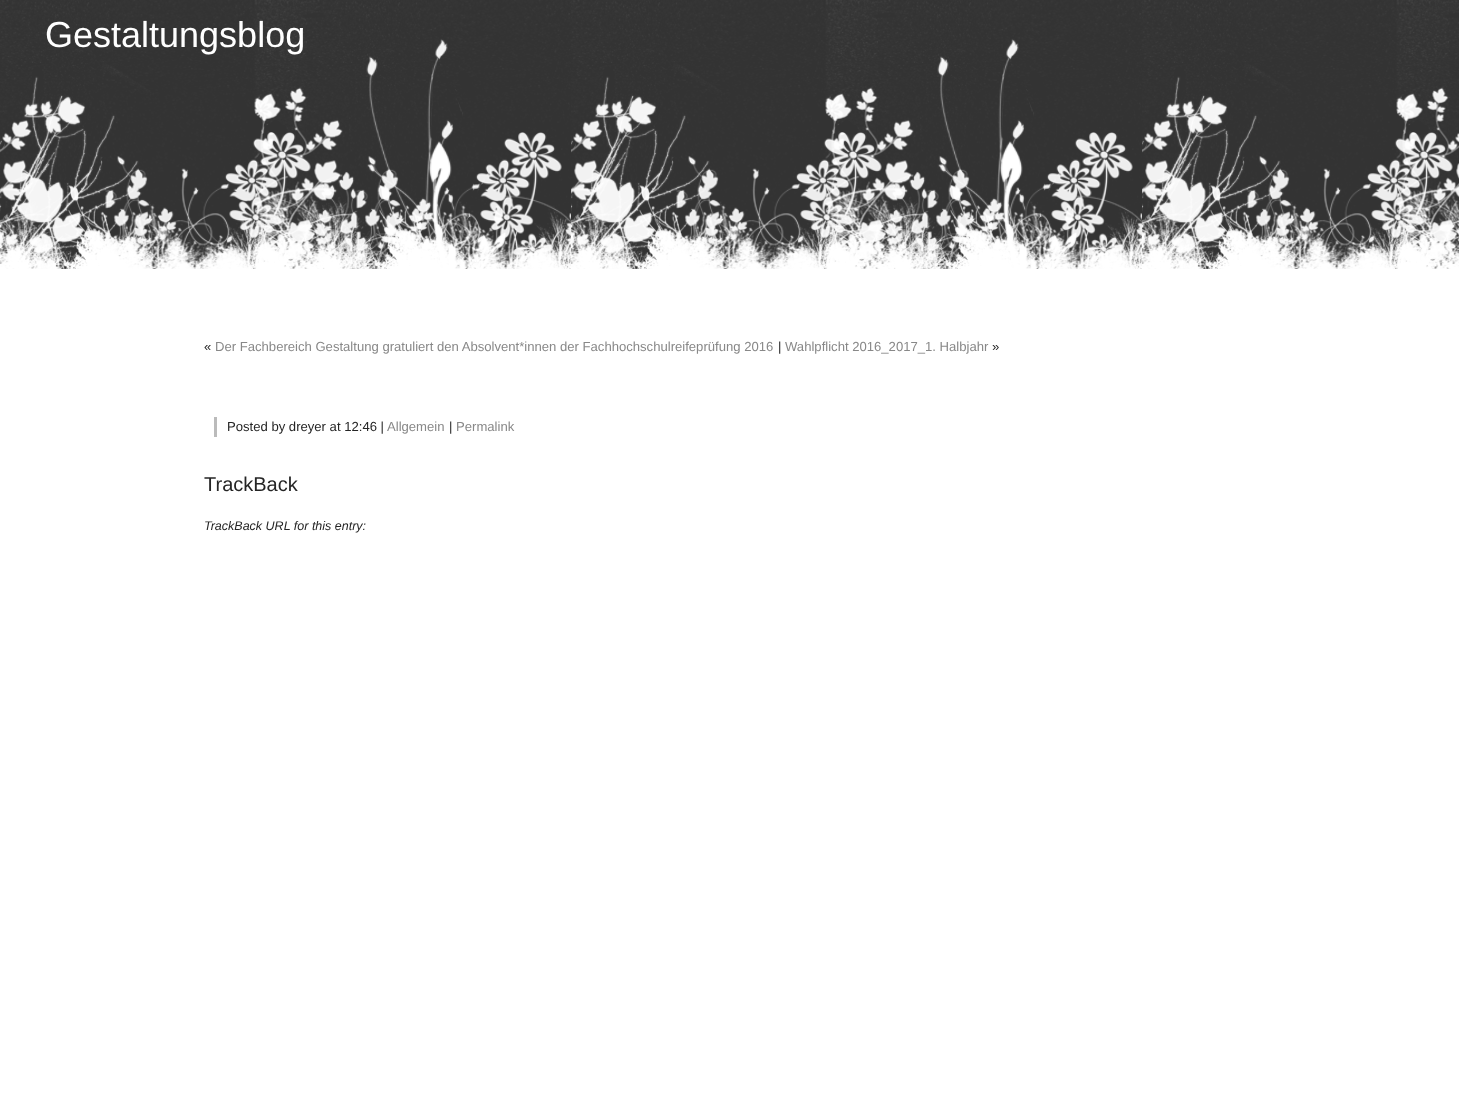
(async () => {
    const canvas = document.querySelector("canvas");
    canvas.width = 1459;
    canvas.height = 1114;
    const context = canvas.getContext("2d");
    context.miterLimit = 4;
    context.fontKerning = "normal";
    function write(s, x, y, font, color) {
        context.font = font;
        context.fillStyle = color;
        context.fillText(s, x, y);
    }
    function block(x, y, w, h, color) {
        context.fillStyle = color;
        context.fillRect(x, y, w, h);
    }
    async function photo(src, x, y, w, h) {
        const img = new Image();
        img.src = src;
        await img.decode();
        context.drawImage(img, x, y, w, h);
    }

    block(0, 0, 1459, 1114, "rgb(255, 255, 255)");
    await photo("media/1.png", 0, 0, 1459, 269);
    write("Gestaltungsblog", 45, 47, "36px Liberation Sans", "rgb(255, 255, 255)");
    write("«", 204, 351, "13.1px Liberation Sans", "rgb(37, 37, 37)");
    write("Der Fachbereich Gestaltung gratuliert den Absolvent*innen der Fachhochschulreifeprüfung 2016", 215, 351, "13.1px Liberation Sans", "rgb(136, 136, 136)");
    write("|", 778, 351, "13.1px Liberation Sans", "rgb(37, 37, 37)");
    write("Wahlpflicht 2016_2017_1. Halbjahr", 785, 351, "13.1px Liberation Sans", "rgb(136, 136, 136)");
    write("»", 992, 351, "13.1px Liberation Sans", "rgb(37, 37, 37)");
    block(214, 417, 3, 20, "rgb(187, 187, 187)");
    write("Posted by dreyer at 12:46 |", 227, 431, "13.1px Liberation Sans", "rgb(37, 37, 37)");
    write("Allgemein", 387, 431, "13.1px Liberation Sans", "rgb(136, 136, 136)");
    write("|", 449, 431, "13.1px Liberation Sans", "rgb(37, 37, 37)");
    write("Permalink", 456, 431, "13.1px Liberation Sans", "rgb(136, 136, 136)");
    write("TrackBack", 204, 491, "20px Liberation Sans", "rgb(37, 37, 37)");
    write("TrackBack URL for this entry:", 204, 530, "italic 12.5px Liberation Sans", "rgb(37, 37, 37)");
})();
